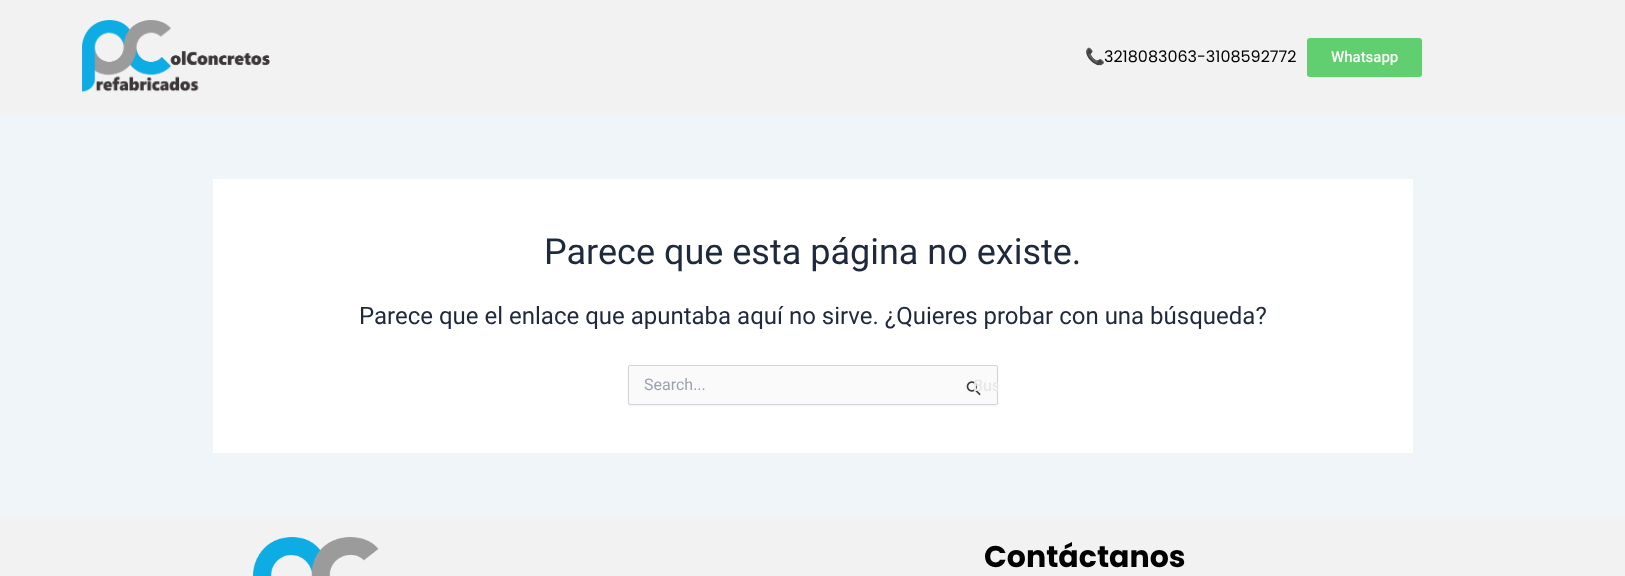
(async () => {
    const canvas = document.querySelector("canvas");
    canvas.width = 1625;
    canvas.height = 576;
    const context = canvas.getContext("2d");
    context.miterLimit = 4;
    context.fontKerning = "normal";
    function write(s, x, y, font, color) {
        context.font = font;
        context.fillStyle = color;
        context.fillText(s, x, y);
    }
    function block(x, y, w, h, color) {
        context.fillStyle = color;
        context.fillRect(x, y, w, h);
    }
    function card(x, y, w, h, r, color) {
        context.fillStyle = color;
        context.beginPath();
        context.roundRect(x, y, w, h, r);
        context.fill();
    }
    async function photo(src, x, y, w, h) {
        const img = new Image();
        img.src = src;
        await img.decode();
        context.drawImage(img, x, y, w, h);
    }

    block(0, 0, 1625, 576, "rgb(240, 245, 250)");
    block(0, 0, 1625, 115, "rgb(242, 242, 242)");
    await photo("media/1.png", 82, 20, 188, 73);
    write("📞", 1085, 62, "16px Noto Color Emoji", "rgb(0, 0, 0)");
    write("3218083063-3108592772", 1104, 62, "16px Poppins", "rgb(0, 0, 0)");
    card(1307, 38, 115, 39, 3, "rgb(97, 206, 112)");
    write("Whatsapp", 1331, 62, "500 15px Roboto", "rgb(255, 255, 255)");
    block(213, 179, 1200, 274, "rgb(255, 255, 255)");
    write("Parece que esta página no existe.", 544, 264, "36px Roboto", "rgb(30, 41, 59)");
    write("Parece que el enlace que apuntaba aquí no sirve. ¿Quieres probar con una búsqueda?", 359, 324, "24px Roboto", "rgb(30, 41, 59)");
    context.fillStyle = "rgba(0, 0, 0, 0.05)";
    context.filter = "blur(1px)";
    context.beginPath();
    context.roundRect(628, 366, 370, 40, 2);
    context.fill();
    context.filter = "none";
    context.fillStyle = "rgb(250, 250, 250)";
    context.beginPath();
    context.roundRect(628.5, 365.5, 369, 39, 1.5);
    context.fill();
    context.strokeStyle = "rgb(209, 213, 219)";
    context.stroke();
    write("Search...", 644, 390, "16px Roboto", "rgb(156, 163, 175)");
    await photo("media/2.png", 966, 381, 15, 15);
    context.save();
    context.beginPath();
    context.roundRect(953, 365, 45, 42, 2);
    context.clip();
    write("Bus", 973, 391, "500 16px Roboto", "rgb(231, 232, 232)");
    context.restore();
    block(0, 517, 1625, 59, "rgb(242, 242, 242)");
    await photo("media/3.png", 253, 537, 126, 39);
    write("Contáctanos", 984, 567, "bold 30px Poppins", "rgb(0, 0, 0)");
})();
